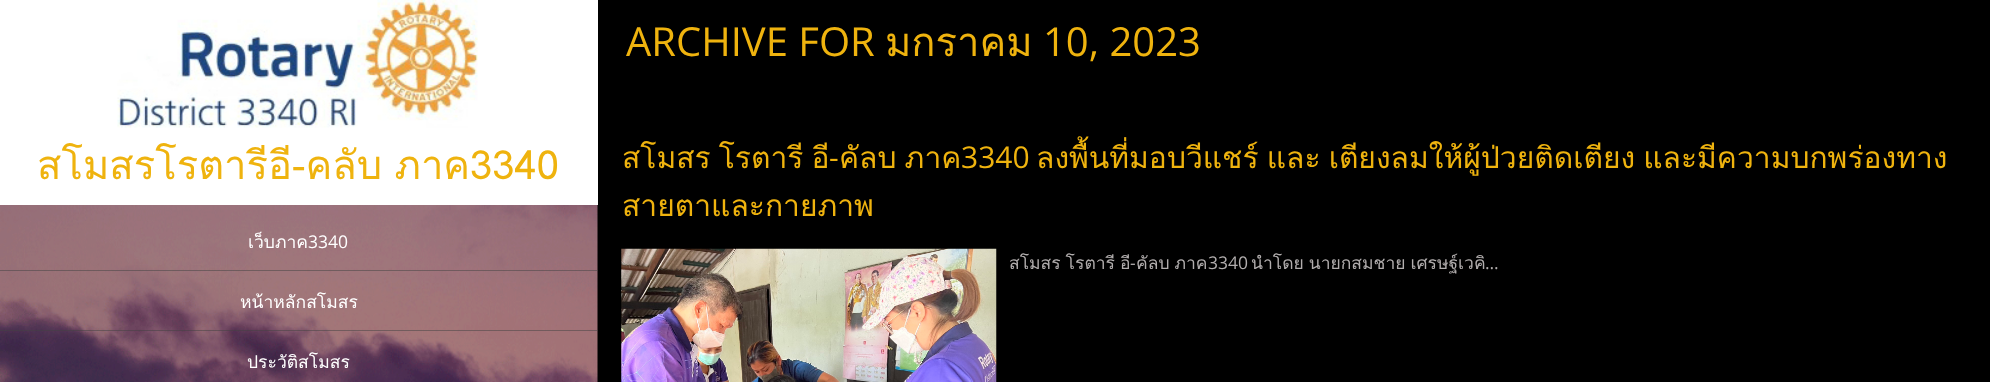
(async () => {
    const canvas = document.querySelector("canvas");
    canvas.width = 1990;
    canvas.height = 382;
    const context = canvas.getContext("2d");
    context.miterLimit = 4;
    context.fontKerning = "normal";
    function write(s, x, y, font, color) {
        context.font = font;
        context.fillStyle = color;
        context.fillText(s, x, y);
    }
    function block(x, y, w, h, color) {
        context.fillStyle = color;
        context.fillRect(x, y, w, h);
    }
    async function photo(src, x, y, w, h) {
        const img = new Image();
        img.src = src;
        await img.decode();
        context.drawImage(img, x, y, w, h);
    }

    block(0, 0, 1990, 382, "rgb(0, 0, 0)");
    await photo("media/1.png", 0, 205, 598, 177);
    block(0, 0, 598, 205, "rgb(255, 255, 255)");
    await photo("media/2.png", 117, 0, 361, 128);
    context.wordSpacing = "-1px";
    write("สโมสรโรตารีอี-คลับ ภาค3340", 37, 179, "40px Loma", "rgb(239, 179, 14)");
    block(0, 270, 598, 1, "rgba(65, 65, 65, 0.5)");
    context.wordSpacing = "0px";
    write("เว็บภาค", 248, 248, "17.5px Loma", "rgb(255, 255, 255)");
    write("3340", 308, 248, "17.5px Open Sans", "rgb(255, 255, 255)");
    block(0, 330, 598, 1, "rgba(65, 65, 65, 0.5)");
    write("หน้าหลักสโมสร", 240, 308, "17.5px Loma", "rgb(255, 255, 255)");
    write("ประวัติสโมสร", 247, 368, "17.5px Loma", "rgb(255, 255, 255)");
    write("ARCHIVE FOR", 626, 56, "40px Open Sans", "rgb(239, 179, 14)");
    write("มกราคม", 885, 56, "40px Loma", "rgb(239, 179, 14)");
    write("10, 2023", 1043, 56, "40px Open Sans", "rgb(239, 179, 14)");
    context.wordSpacing = "-2px";
    write("สโมสร โรตารี อี", 622, 168, "30px Loma", "rgb(239, 179, 14)");
    context.wordSpacing = "0px";
    write("-", 829, 168, "30px Open Sans", "rgb(239, 179, 14)");
    context.wordSpacing = "-2px";
    write("คัลบ ภาค", 839, 168, "30px Loma", "rgb(239, 179, 14)");
    context.wordSpacing = "0px";
    write("3340", 961, 168, "30px Open Sans", "rgb(239, 179, 14)");
    context.wordSpacing = "-2px";
    write("ลงพื้นที่มอบวีแชร์ และ เตียงลมให้ผู้ป่วยติดเตียง และมีความบกพร่องทาง", 1036, 168, "30px Loma", "rgb(239, 179, 14)");
    context.wordSpacing = "0px";
    write("สายตาและกายภาพ", 622, 216, "30px Loma", "rgb(239, 179, 14)");
    await photo("media/3.png", 621, 248, 376, 134);
    context.wordSpacing = "-1px";
    write("สโมสร โรตารี อี", 1009, 269, "17.5px Loma", "rgb(177, 173, 173)");
    context.wordSpacing = "0px";
    write("-", 1130, 269, "17.5px Open Sans", "rgb(177, 173, 173)");
    context.wordSpacing = "-1px";
    write("คัลบ ภาค", 1136, 269, "17.5px Loma", "rgb(177, 173, 173)");
    context.wordSpacing = "0px";
    write("3340", 1208, 269, "17.5px Open Sans", "rgb(177, 173, 173)");
    context.wordSpacing = "-1px";
    write("นำโดย นายกสมชาย เศรษฐ์เวคิ", 1251, 269, "17.5px Loma", "rgb(177, 173, 173)");
    context.wordSpacing = "0px";
    write("…", 1485, 269, "17.5px Open Sans", "rgb(177, 173, 173)");
})();
